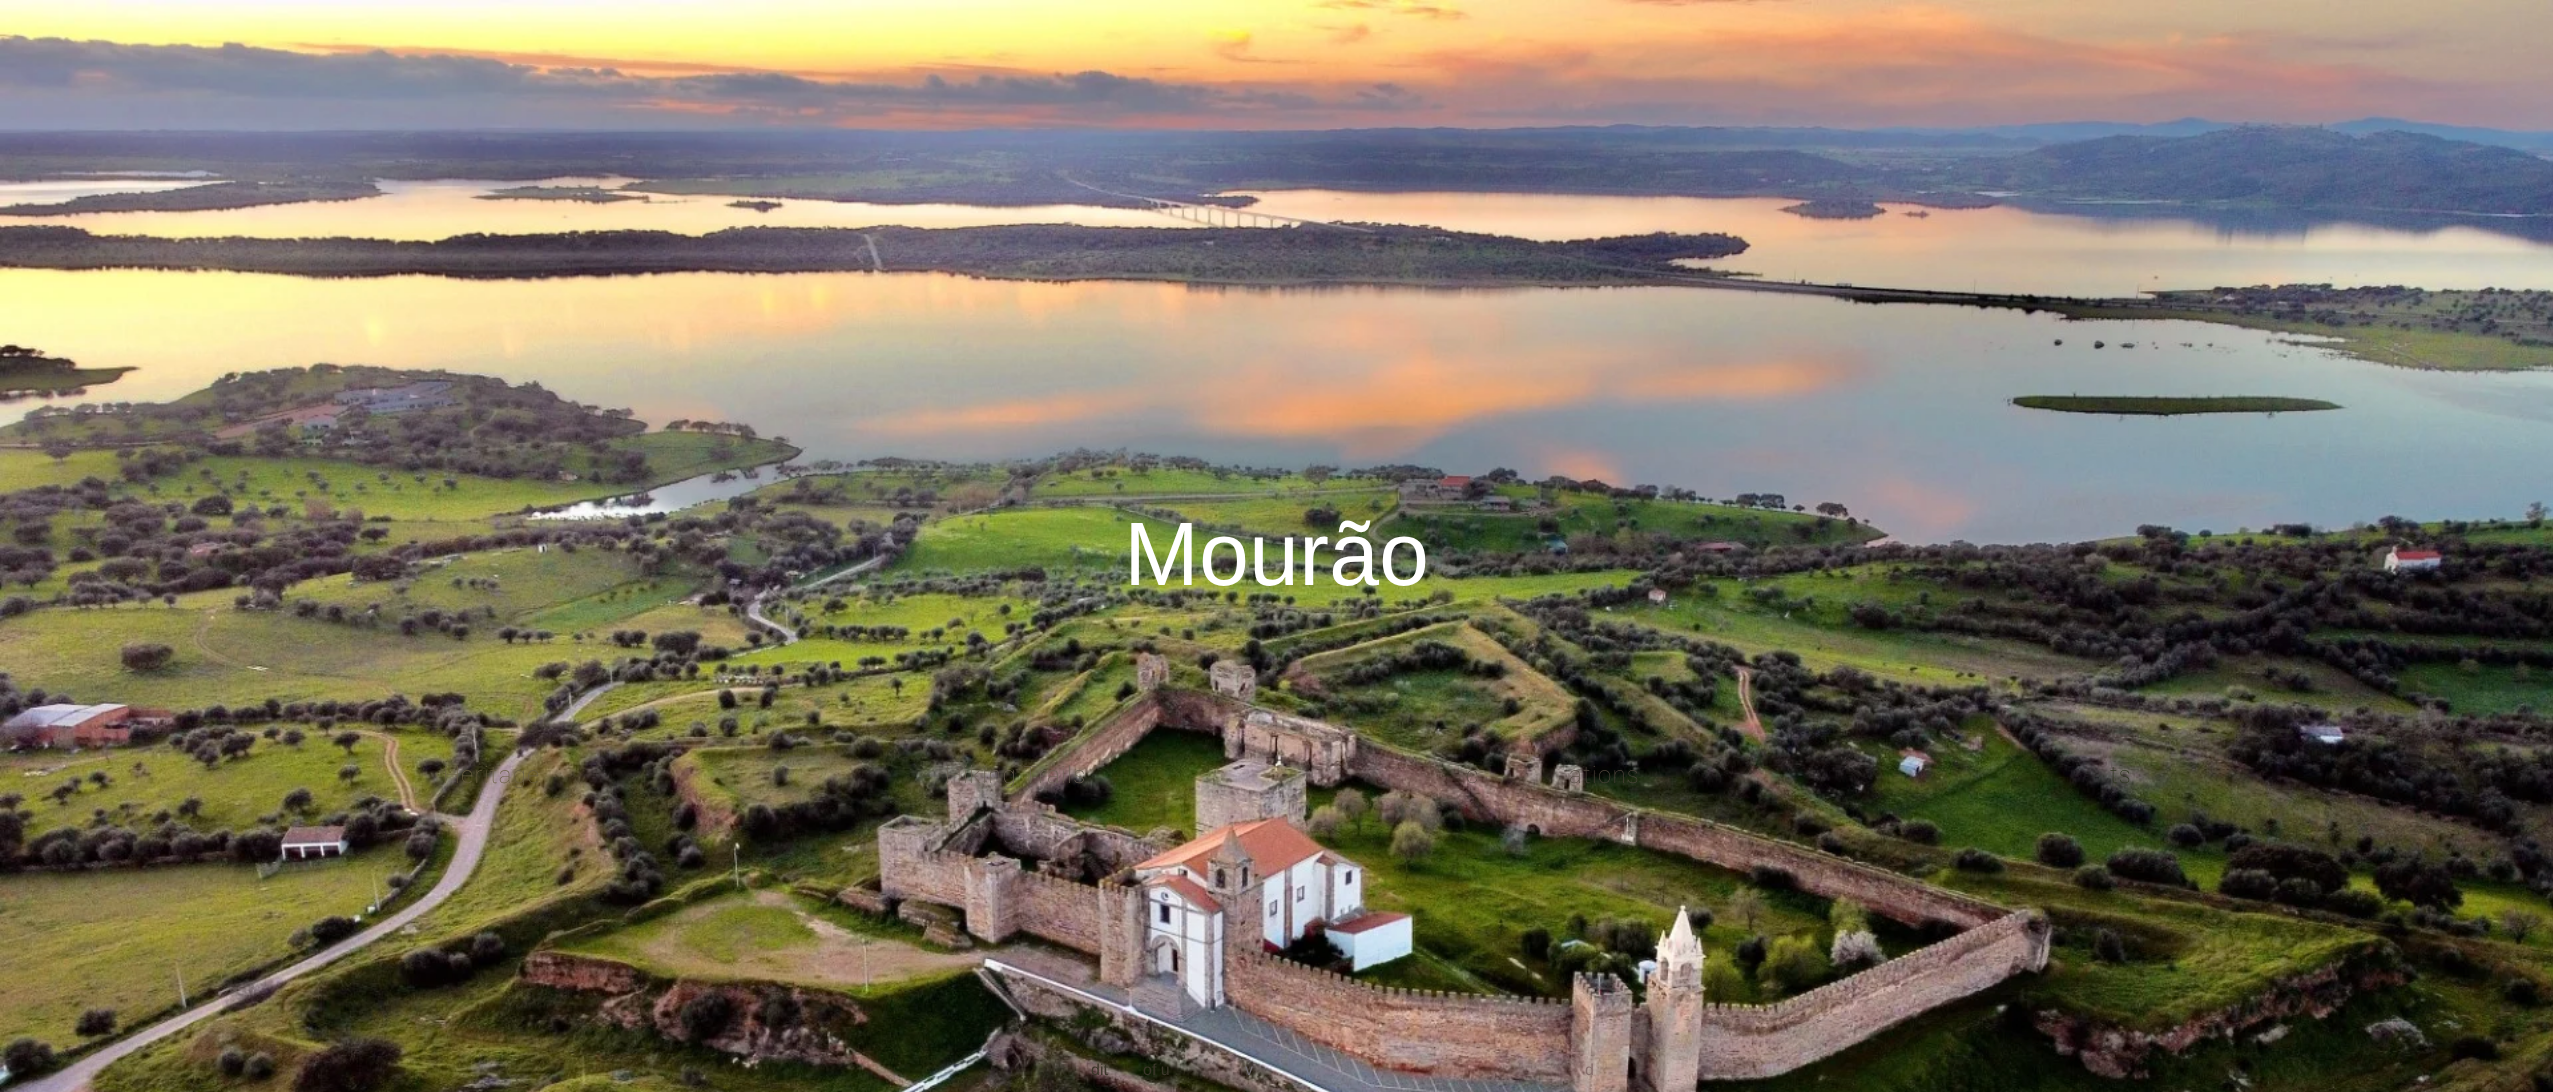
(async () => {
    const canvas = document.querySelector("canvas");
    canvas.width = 2553;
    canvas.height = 1092;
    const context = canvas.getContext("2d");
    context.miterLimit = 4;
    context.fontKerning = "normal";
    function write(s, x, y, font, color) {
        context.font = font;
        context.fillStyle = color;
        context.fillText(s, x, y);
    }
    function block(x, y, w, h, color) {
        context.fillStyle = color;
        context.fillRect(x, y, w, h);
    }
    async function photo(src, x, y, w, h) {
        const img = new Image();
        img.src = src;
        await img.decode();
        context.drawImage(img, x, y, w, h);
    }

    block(0, 0, 2553, 1092, "rgb(255, 255, 255)");
    await photo("media/1.png", 0, 0, 2553, 1092);
    write("Mourão", 1124, 585, "90px Liberation Sans", "rgb(255, 255, 255)");
    context.letterSpacing = "1.25px";
    write("Heritage", 443, 783, "100 24px Roboto", "rgb(104, 94, 67)");
    write("Hiking Trails", 945, 783, "100 24px Roboto", "rgb(106, 96, 84)");
    write("c", 1466, 783, "100 24px Roboto", "rgb(80, 71, 62)");
    write("ations", 1569, 783, "100 24px Roboto", "rgb(80, 71, 62)");
    write("ts", 2110, 783, "100 24px Roboto", "rgb(45, 52, 31)");
    context.letterSpacing = "0px";
    write("dit", 1091, 1075, "16px Liberation Sans", "rgb(59, 54, 42)");
    write("of u", 1143, 1075, "16px Liberation Sans", "rgb(59, 54, 42)");
    write("v", 1245, 1075, "16px Liberation Sans", "rgb(114, 109, 114)");
    write("d", 1585, 1075, "16px Liberation Sans", "rgb(133, 109, 106)");
})();
